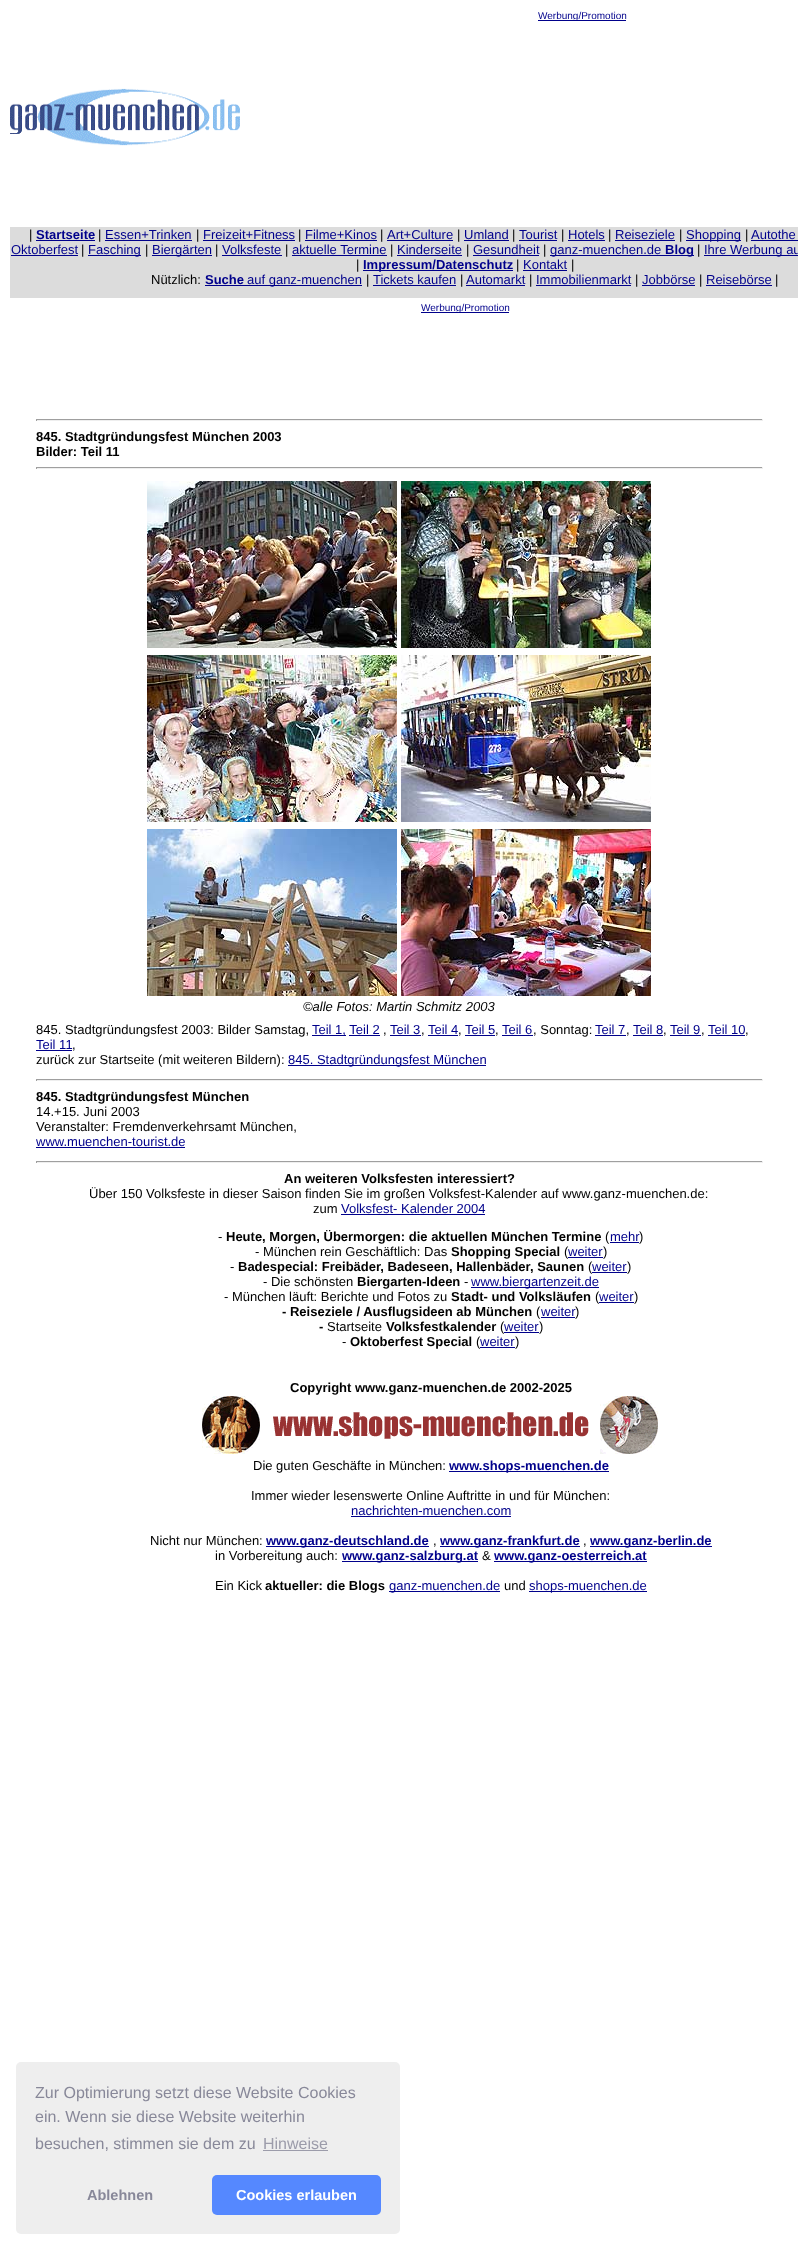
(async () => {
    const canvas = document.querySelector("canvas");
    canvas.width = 798;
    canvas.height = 2250;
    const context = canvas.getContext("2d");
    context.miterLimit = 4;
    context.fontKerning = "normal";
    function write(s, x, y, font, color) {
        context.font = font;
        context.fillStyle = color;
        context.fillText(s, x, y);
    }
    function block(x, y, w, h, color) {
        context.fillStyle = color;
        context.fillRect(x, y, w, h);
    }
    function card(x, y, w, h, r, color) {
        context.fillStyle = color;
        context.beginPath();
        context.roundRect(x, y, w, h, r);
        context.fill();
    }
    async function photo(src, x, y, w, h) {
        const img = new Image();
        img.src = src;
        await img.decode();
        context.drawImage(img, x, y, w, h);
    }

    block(0, 0, 798, 2250, "rgb(255, 255, 255)");
    block(538, 20, 88, 1, "rgb(0, 0, 139)");
    write("Werbung/Promotion", 538, 19, "10px Liberation Sans", "rgb(0, 0, 139)");
    await photo("media/1.png", 10, 88, 230, 58);
    block(10, 227, 788, 71, "rgb(220, 220, 220)");
    write("|", 29, 239, "13px Liberation Sans", "rgb(0, 0, 0)");
    write("Startseite", 36, 239, "bold 13px Liberation Sans", "rgb(0, 0, 139)");
    block(36, 240, 59, 1, "rgb(0, 0, 139)");
    write("|", 98, 239, "13px Liberation Sans", "rgb(0, 0, 0)");
    write("Essen+Trinken", 105, 239, "13px Liberation Sans", "rgb(0, 0, 139)");
    block(105, 240, 87, 1, "rgb(0, 0, 139)");
    write("|", 196, 239, "13px Liberation Sans", "rgb(0, 0, 0)");
    write("Freizeit+Fitness", 203, 239, "13px Liberation Sans", "rgb(0, 0, 139)");
    block(203, 240, 92, 1, "rgb(0, 0, 139)");
    write("|", 298, 239, "13px Liberation Sans", "rgb(0, 0, 0)");
    write("Filme+Kinos", 305, 239, "13px Liberation Sans", "rgb(0, 0, 139)");
    block(305, 240, 72, 1, "rgb(0, 0, 139)");
    write("|", 380, 239, "13px Liberation Sans", "rgb(0, 0, 0)");
    write("Art+Culture", 387, 239, "13px Liberation Sans", "rgb(0, 0, 139)");
    block(387, 240, 66, 1, "rgb(0, 0, 139)");
    write("|", 457, 239, "13px Liberation Sans", "rgb(0, 0, 0)");
    write("Umland", 464, 239, "13px Liberation Sans", "rgb(0, 0, 139)");
    block(464, 240, 45, 1, "rgb(0, 0, 139)");
    write("|", 512, 239, "13px Liberation Sans", "rgb(0, 0, 0)");
    write("Tourist", 519, 239, "13px Liberation Sans", "rgb(0, 0, 139)");
    block(519, 240, 38, 1, "rgb(0, 0, 139)");
    write("|", 561, 239, "13px Liberation Sans", "rgb(0, 0, 0)");
    write("Hotels", 568, 239, "13px Liberation Sans", "rgb(0, 0, 139)");
    block(568, 240, 37, 1, "rgb(0, 0, 139)");
    write("|", 608, 239, "13px Liberation Sans", "rgb(0, 0, 0)");
    write("Reiseziele", 615, 239, "13px Liberation Sans", "rgb(0, 0, 139)");
    block(615, 240, 60, 1, "rgb(0, 0, 139)");
    write("|", 679, 239, "13px Liberation Sans", "rgb(0, 0, 0)");
    block(686, 240, 55, 1, "rgb(0, 0, 139)");
    write("Shopping", 686, 239, "13px Liberation Sans", "rgb(0, 0, 139)");
    write("|", 745, 239, "13px Liberation Sans", "rgb(0, 0, 0)");
    write("Autothe", 751, 239, "13px Liberation Sans", "rgb(0, 0, 139)");
    block(751, 240, 47, 1, "rgb(0, 0, 139)");
    write("Oktoberfest", 11, 254, "13px Liberation Sans", "rgb(0, 0, 139)");
    block(11, 255, 67, 1, "rgb(0, 0, 139)");
    write("|", 81, 254, "13px Liberation Sans", "rgb(0, 0, 0)");
    block(88, 255, 53, 1, "rgb(0, 0, 139)");
    write("Fasching", 88, 254, "13px Liberation Sans", "rgb(0, 0, 139)");
    write("|", 145, 254, "13px Liberation Sans", "rgb(0, 0, 0)");
    block(152, 255, 60, 1, "rgb(0, 0, 139)");
    write("Biergärten", 152, 254, "13px Liberation Sans", "rgb(0, 0, 139)");
    write("|", 215, 254, "13px Liberation Sans", "rgb(0, 0, 0)");
    write("Volksfeste", 222, 254, "13px Liberation Sans", "rgb(0, 0, 139)");
    block(222, 255, 60, 1, "rgb(0, 0, 139)");
    write("|", 285, 254, "13px Liberation Sans", "rgb(0, 0, 0)");
    write("aktuelle Termine", 292, 254, "13px Liberation Sans", "rgb(0, 0, 139)");
    block(292, 255, 95, 1, "rgb(0, 0, 139)");
    write("|", 390, 254, "13px Liberation Sans", "rgb(0, 0, 0)");
    write("Kinderseite", 397, 254, "13px Liberation Sans", "rgb(0, 0, 139)");
    block(397, 255, 65, 1, "rgb(0, 0, 139)");
    write("|", 466, 254, "13px Liberation Sans", "rgb(0, 0, 0)");
    write("Gesundheit", 473, 254, "13px Liberation Sans", "rgb(0, 0, 139)");
    block(473, 255, 66, 1, "rgb(0, 0, 139)");
    write("|", 543, 254, "13px Liberation Sans", "rgb(0, 0, 0)");
    block(550, 255, 144, 1, "rgb(0, 0, 139)");
    write("ganz-muenchen.de", 550, 254, "13px Liberation Sans", "rgb(0, 0, 139)");
    write("Blog", 665, 254, "bold 13px Liberation Sans", "rgb(0, 0, 139)");
    write("|", 697, 254, "13px Liberation Sans", "rgb(0, 0, 0)");
    block(704, 255, 94, 1, "rgb(0, 0, 139)");
    write("Ihre Werbung au", 704, 254, "13px Liberation Sans", "rgb(0, 0, 139)");
    write("|", 356, 269, "13px Liberation Sans", "rgb(0, 0, 0)");
    block(363, 270, 150, 1, "rgb(0, 0, 139)");
    write("Impressum/Datenschutz", 363, 269, "bold 13px Liberation Sans", "rgb(0, 0, 139)");
    write("|", 516, 269, "13px Liberation Sans", "rgb(0, 0, 0)");
    write("Kontakt", 523, 269, "13px Liberation Sans", "rgb(0, 0, 139)");
    block(523, 270, 44, 1, "rgb(0, 0, 139)");
    write("|", 571, 269, "13px Liberation Sans", "rgb(0, 0, 0)");
    write("Nützlich:", 151, 284, "13px Liberation Sans", "rgb(0, 0, 0)");
    write("Suche", 205, 284, "bold 13px Liberation Sans", "rgb(0, 0, 139)");
    block(205, 285, 157, 1, "rgb(0, 0, 139)");
    write("auf ganz-muenchen", 247, 284, "13px Liberation Sans", "rgb(0, 0, 139)");
    write("|", 366, 284, "13px Liberation Sans", "rgb(0, 0, 0)");
    write("Tickets kaufen", 373, 284, "13px Liberation Sans", "rgb(0, 0, 139)");
    block(373, 285, 83, 1, "rgb(0, 0, 139)");
    write("|", 460, 284, "13px Liberation Sans", "rgb(0, 0, 0)");
    write("Automarkt", 466, 284, "13px Liberation Sans", "rgb(0, 0, 139)");
    block(466, 285, 59, 1, "rgb(0, 0, 139)");
    write("|", 529, 284, "13px Liberation Sans", "rgb(0, 0, 0)");
    write("Immobilienmarkt", 536, 284, "13px Liberation Sans", "rgb(0, 0, 139)");
    block(536, 285, 95, 1, "rgb(0, 0, 139)");
    write("|", 635, 284, "13px Liberation Sans", "rgb(0, 0, 0)");
    write("Jobbörse", 642, 284, "13px Liberation Sans", "rgb(0, 0, 139)");
    block(642, 285, 53, 1, "rgb(0, 0, 139)");
    write("|", 699, 284, "13px Liberation Sans", "rgb(0, 0, 0)");
    write("Reisebörse", 706, 284, "13px Liberation Sans", "rgb(0, 0, 139)");
    block(706, 285, 66, 1, "rgb(0, 0, 139)");
    write("|", 775, 284, "13px Liberation Sans", "rgb(0, 0, 0)");
    block(421, 312, 88, 1, "rgb(0, 0, 139)");
    write("Werbung/Promotion", 421, 311, "10px Liberation Sans", "rgb(0, 0, 139)");
    block(36, 419, 727, 1, "rgb(159, 159, 159)");
    block(762, 419, 1, 2, "rgb(238, 238, 238)");
    block(36, 420, 727, 1, "rgb(238, 238, 238)");
    block(36, 419, 1, 2, "rgb(159, 159, 159)");
    write("845. Stadtgründungsfest München 2003", 36, 441, "bold 13px Liberation Sans", "rgb(0, 0, 0)");
    write("Bilder: Teil 11", 36, 456, "bold 13px Liberation Sans", "rgb(0, 0, 0)");
    block(36, 467, 727, 1, "rgb(159, 159, 159)");
    block(762, 467, 1, 2, "rgb(238, 238, 238)");
    block(36, 468, 727, 1, "rgb(238, 238, 238)");
    block(36, 467, 1, 2, "rgb(159, 159, 159)");
    await photo("media/2.png", 147, 481, 250, 167);
    await photo("media/3.png", 401, 481, 250, 167);
    await photo("media/4.png", 147, 655, 250, 167);
    await photo("media/5.png", 401, 655, 250, 167);
    await photo("media/6.png", 147, 829, 250, 167);
    await photo("media/7.png", 401, 829, 250, 167);
    write("©alle Fotos: Martin Schmitz 2003", 303, 1011, "italic 13px Liberation Sans", "rgb(0, 0, 0)");
    write("845. Stadtgründungsfest 2003: Bilder Samstag,", 36, 1034, "13px Liberation Sans", "rgb(0, 0, 0)");
    block(312, 1035, 34, 1, "rgb(0, 0, 139)");
    write("Teil 1, Teil 2", 312, 1034, "13px Liberation Sans", "rgb(0, 0, 139)");
    write(",", 383, 1034, "13px Liberation Sans", "rgb(0, 0, 0)");
    block(349, 1035, 31, 1, "rgb(0, 0, 139)");
    write("Teil 3", 390, 1034, "13px Liberation Sans", "rgb(0, 0, 139)");
    write(",", 421, 1034, "13px Liberation Sans", "rgb(0, 0, 0)");
    block(390, 1035, 31, 1, "rgb(0, 0, 139)");
    write("Teil 4", 428, 1034, "13px Liberation Sans", "rgb(0, 0, 139)");
    write(",", 458, 1034, "13px Liberation Sans", "rgb(0, 0, 0)");
    block(428, 1035, 30, 1, "rgb(0, 0, 139)");
    write("Teil 5", 465, 1034, "13px Liberation Sans", "rgb(0, 0, 139)");
    write(",", 495, 1034, "13px Liberation Sans", "rgb(0, 0, 0)");
    block(465, 1035, 30, 1, "rgb(0, 0, 139)");
    block(502, 1035, 31, 1, "rgb(0, 0, 139)");
    write("Teil 6", 502, 1034, "13px Liberation Sans", "rgb(0, 0, 139)");
    write(", Sonntag:", 533, 1034, "13px Liberation Sans", "rgb(0, 0, 0)");
    write("Teil 7", 595, 1034, "13px Liberation Sans", "rgb(0, 0, 139)");
    write(",", 626, 1034, "13px Liberation Sans", "rgb(0, 0, 0)");
    block(595, 1035, 31, 1, "rgb(0, 0, 139)");
    write("Teil 8", 633, 1034, "13px Liberation Sans", "rgb(0, 0, 139)");
    write(",", 663, 1034, "13px Liberation Sans", "rgb(0, 0, 0)");
    block(633, 1035, 30, 1, "rgb(0, 0, 139)");
    write("Teil 9", 670, 1034, "13px Liberation Sans", "rgb(0, 0, 139)");
    write(",", 701, 1034, "13px Liberation Sans", "rgb(0, 0, 0)");
    block(670, 1035, 31, 1, "rgb(0, 0, 139)");
    write("Teil 10", 708, 1034, "13px Liberation Sans", "rgb(0, 0, 139)");
    write(",", 745, 1034, "13px Liberation Sans", "rgb(0, 0, 0)");
    block(708, 1035, 37, 1, "rgb(0, 0, 139)");
    write("Teil 11", 36, 1049, "13px Liberation Sans", "rgb(0, 0, 139)");
    write(",", 72, 1049, "13px Liberation Sans", "rgb(0, 0, 0)");
    block(36, 1050, 36, 1, "rgb(0, 0, 139)");
    write("zurück zur Startseite (mit weiteren Bildern):", 36, 1064, "13px Liberation Sans", "rgb(0, 0, 0)");
    block(288, 1065, 198, 1, "rgb(0, 0, 139)");
    write("845. Stadtgründungsfest München", 288, 1064, "13px Liberation Sans", "rgb(0, 0, 139)");
    block(36, 1079, 727, 1, "rgb(159, 159, 159)");
    block(762, 1079, 1, 2, "rgb(238, 238, 238)");
    block(36, 1080, 727, 1, "rgb(238, 238, 238)");
    block(36, 1079, 1, 2, "rgb(159, 159, 159)");
    write("845. Stadtgründungsfest München", 36, 1101, "bold 13px Liberation Sans", "rgb(0, 0, 0)");
    write("14.+15. Juni 2003", 36, 1116, "13px Liberation Sans", "rgb(0, 0, 0)");
    write("Veranstalter: Fremdenverkehrsamt München,", 36, 1131, "13px Liberation Sans", "rgb(0, 0, 0)");
    write("www.muenchen-tourist.de", 36, 1146, "13px Liberation Sans", "rgb(0, 0, 139)");
    block(36, 1147, 149, 1, "rgb(0, 0, 139)");
    block(36, 1161, 727, 1, "rgb(159, 159, 159)");
    block(762, 1161, 1, 2, "rgb(238, 238, 238)");
    block(36, 1162, 727, 1, "rgb(238, 238, 238)");
    block(36, 1161, 1, 2, "rgb(159, 159, 159)");
    write("An weiteren Volksfesten interessiert?", 284, 1183, "bold 13px Liberation Sans", "rgb(0, 0, 0)");
    write("Über 150 Volksfeste in dieser Saison finden Sie im großen Volksfest-Kalender auf www.ganz-muenchen.de:", 89, 1198, "13px Liberation Sans", "rgb(0, 0, 0)");
    write("zum", 313, 1213, "13px Liberation Sans", "rgb(0, 0, 0)");
    write("Volksfest- Kalender 2004", 341, 1213, "13px Liberation Sans", "rgb(0, 0, 139)");
    block(341, 1214, 144, 1, "rgb(0, 0, 139)");
    write("-", 218, 1241, "13px Liberation Sans", "rgb(0, 0, 0)");
    write("Heute, Morgen, Übermorgen: die aktuellen München Termine", 226, 1241, "bold 13px Liberation Sans", "rgb(0, 0, 0)");
    write("(", 605, 1241, "13px Liberation Sans", "rgb(0, 0, 0)");
    block(610, 1242, 29, 1, "rgb(0, 0, 139)");
    write("mehr", 610, 1241, "13px Liberation Sans", "rgb(0, 0, 139)");
    write(")", 639, 1241, "13px Liberation Sans", "rgb(0, 0, 0)");
    write("- München rein Geschäftlich: Das", 255, 1256, "13px Liberation Sans", "rgb(0, 0, 0)");
    write("Shopping Special", 451, 1256, "bold 13px Liberation Sans", "rgb(0, 0, 0)");
    write("(", 564, 1256, "13px Liberation Sans", "rgb(0, 0, 0)");
    block(568, 1257, 35, 1, "rgb(0, 0, 139)");
    write("weiter", 568, 1256, "13px Liberation Sans", "rgb(0, 0, 139)");
    write(")", 603, 1256, "13px Liberation Sans", "rgb(0, 0, 0)");
    write("-", 230, 1271, "13px Liberation Sans", "rgb(0, 0, 0)");
    write("Badespecial: Freibäder, Badeseen, Hallenbäder, Saunen", 238, 1271, "bold 13px Liberation Sans", "rgb(0, 0, 0)");
    write("(", 588, 1271, "13px Liberation Sans", "rgb(0, 0, 0)");
    block(592, 1272, 35, 1, "rgb(0, 0, 139)");
    write("weiter", 592, 1271, "13px Liberation Sans", "rgb(0, 0, 139)");
    write(")", 627, 1271, "13px Liberation Sans", "rgb(0, 0, 0)");
    write("- Die schönsten", 263, 1286, "13px Liberation Sans", "rgb(0, 0, 0)");
    write("Biergarten-Ideen", 357, 1286, "bold 13px Liberation Sans", "rgb(0, 0, 0)");
    write("-", 464, 1286, "13px Liberation Sans", "rgb(0, 0, 0)");
    block(471, 1287, 128, 1, "rgb(0, 0, 139)");
    write("www.biergartenzeit.de", 471, 1286, "13px Liberation Sans", "rgb(0, 0, 139)");
    write("- München läuft: Berichte und Fotos zu", 224, 1301, "13px Liberation Sans", "rgb(0, 0, 0)");
    write("Stadt- und Volksläufen", 451, 1301, "bold 13px Liberation Sans", "rgb(0, 0, 0)");
    write("(", 595, 1301, "13px Liberation Sans", "rgb(0, 0, 0)");
    block(599, 1302, 35, 1, "rgb(0, 0, 139)");
    write("weiter", 599, 1301, "13px Liberation Sans", "rgb(0, 0, 139)");
    write(")", 634, 1301, "13px Liberation Sans", "rgb(0, 0, 0)");
    write("- Reiseziele / Ausflugsideen ab München", 282, 1316, "bold 13px Liberation Sans", "rgb(0, 0, 0)");
    write("(", 536, 1316, "13px Liberation Sans", "rgb(0, 0, 0)");
    block(541, 1317, 34, 1, "rgb(0, 0, 139)");
    write("weiter", 541, 1316, "13px Liberation Sans", "rgb(0, 0, 139)");
    write(")", 575, 1316, "13px Liberation Sans", "rgb(0, 0, 0)");
    write("-", 319, 1331, "bold 13px Liberation Sans", "rgb(0, 0, 0)");
    write("Startseite", 327, 1331, "13px Liberation Sans", "rgb(0, 0, 0)");
    write("Volksfestkalender", 386, 1331, "bold 13px Liberation Sans", "rgb(0, 0, 0)");
    write("(", 500, 1331, "13px Liberation Sans", "rgb(0, 0, 0)");
    block(504, 1332, 35, 1, "rgb(0, 0, 139)");
    write("weiter", 504, 1331, "13px Liberation Sans", "rgb(0, 0, 139)");
    write(")", 539, 1331, "13px Liberation Sans", "rgb(0, 0, 0)");
    write("-", 342, 1346, "13px Liberation Sans", "rgb(0, 0, 0)");
    write("Oktoberfest Special", 350, 1346, "bold 13px Liberation Sans", "rgb(0, 0, 0)");
    write("(", 476, 1346, "13px Liberation Sans", "rgb(0, 0, 0)");
    block(480, 1347, 35, 1, "rgb(0, 0, 139)");
    write("weiter", 480, 1346, "13px Liberation Sans", "rgb(0, 0, 139)");
    write(")", 515, 1346, "13px Liberation Sans", "rgb(0, 0, 0)");
    write("Copyright www.ganz-muenchen.de 2002-2025", 290, 1392, "bold 13px Liberation Sans", "rgb(0, 0, 0)");
    await photo("media/8.png", 202, 1396, 456, 58);
    write("Die guten Geschäfte in München:", 253, 1470, "13px Liberation Sans", "rgb(0, 0, 0)");
    block(449, 1471, 160, 1, "rgb(0, 0, 139)");
    write("www.shops-muenchen.de", 449, 1470, "bold 13px Liberation Sans", "rgb(0, 0, 139)");
    write("Immer wieder lesenswerte Online Auftritte in und für München:", 251, 1500, "13px Liberation Sans", "rgb(0, 0, 0)");
    write("nachrichten-muenchen.com", 351, 1515, "13px Liberation Sans", "rgb(0, 0, 139)");
    block(351, 1516, 160, 1, "rgb(0, 0, 139)");
    write("Nicht nur München:", 150, 1545, "13px Liberation Sans", "rgb(0, 0, 0)");
    block(266, 1546, 163, 1, "rgb(0, 0, 139)");
    write("www.ganz-deutschland.de", 266, 1545, "bold 13px Liberation Sans", "rgb(0, 0, 139)");
    write(",", 433, 1545, "13px Liberation Sans", "rgb(0, 0, 0)");
    block(440, 1546, 140, 1, "rgb(0, 0, 139)");
    write("www.ganz-frankfurt.de", 440, 1545, "bold 13px Liberation Sans", "rgb(0, 0, 139)");
    write(",", 583, 1545, "13px Liberation Sans", "rgb(0, 0, 0)");
    block(590, 1546, 122, 1, "rgb(0, 0, 139)");
    write("www.ganz-berlin.de", 590, 1545, "bold 13px Liberation Sans", "rgb(0, 0, 139)");
    write("in Vorbereitung auch:", 215, 1560, "13px Liberation Sans", "rgb(0, 0, 0)");
    block(342, 1561, 136, 1, "rgb(0, 0, 139)");
    write("www.ganz-salzburg.at", 342, 1560, "bold 13px Liberation Sans", "rgb(0, 0, 139)");
    write("&", 482, 1560, "13px Liberation Sans", "rgb(0, 0, 0)");
    block(494, 1561, 153, 1, "rgb(0, 0, 139)");
    write("www.ganz-oesterreich.at", 494, 1560, "bold 13px Liberation Sans", "rgb(0, 0, 139)");
    write("Ein Kick", 215, 1590, "13px Liberation Sans", "rgb(0, 0, 0)");
    write("aktueller: die Blogs", 265, 1590, "bold 13px Liberation Sans", "rgb(0, 0, 0)");
    block(389, 1591, 111, 1, "rgb(0, 0, 139)");
    write("ganz-muenchen.de", 389, 1590, "13px Liberation Sans", "rgb(0, 0, 139)");
    write("und", 504, 1590, "13px Liberation Sans", "rgb(0, 0, 0)");
    block(529, 1591, 118, 1, "rgb(0, 0, 139)");
    write("shops-muenchen.de", 529, 1590, "13px Liberation Sans", "rgb(0, 0, 139)");
    card(16, 2062, 384, 172, 5, "rgb(238, 238, 238)");
    write("Zur Optimierung setzt diese Website Cookies", 35, 2098, "16px Liberation Sans", "rgb(136, 136, 153)");
    write("ein. Wenn sie diese Website weiterhin", 35, 2122, "16px Liberation Sans", "rgb(136, 136, 153)");
    write("besuchen, stimmen sie dem zu", 35, 2149, "16px Liberation Sans", "rgb(136, 136, 153)");
    write("Hinweise", 263, 2149, "16px Liberation Sans", "rgb(156, 156, 170)");
    block(263, 2150, 65, 1, "rgb(156, 156, 170)");
    write("Ablehnen", 87, 2200, "bold 14.5px Liberation Sans", "rgb(136, 136, 153)");
    card(212, 2175, 169, 40, 5, "rgb(85, 136, 255)");
    write("Cookies erlauben", 236, 2200, "bold 14.5px Liberation Sans", "rgb(255, 255, 255)");
})();
